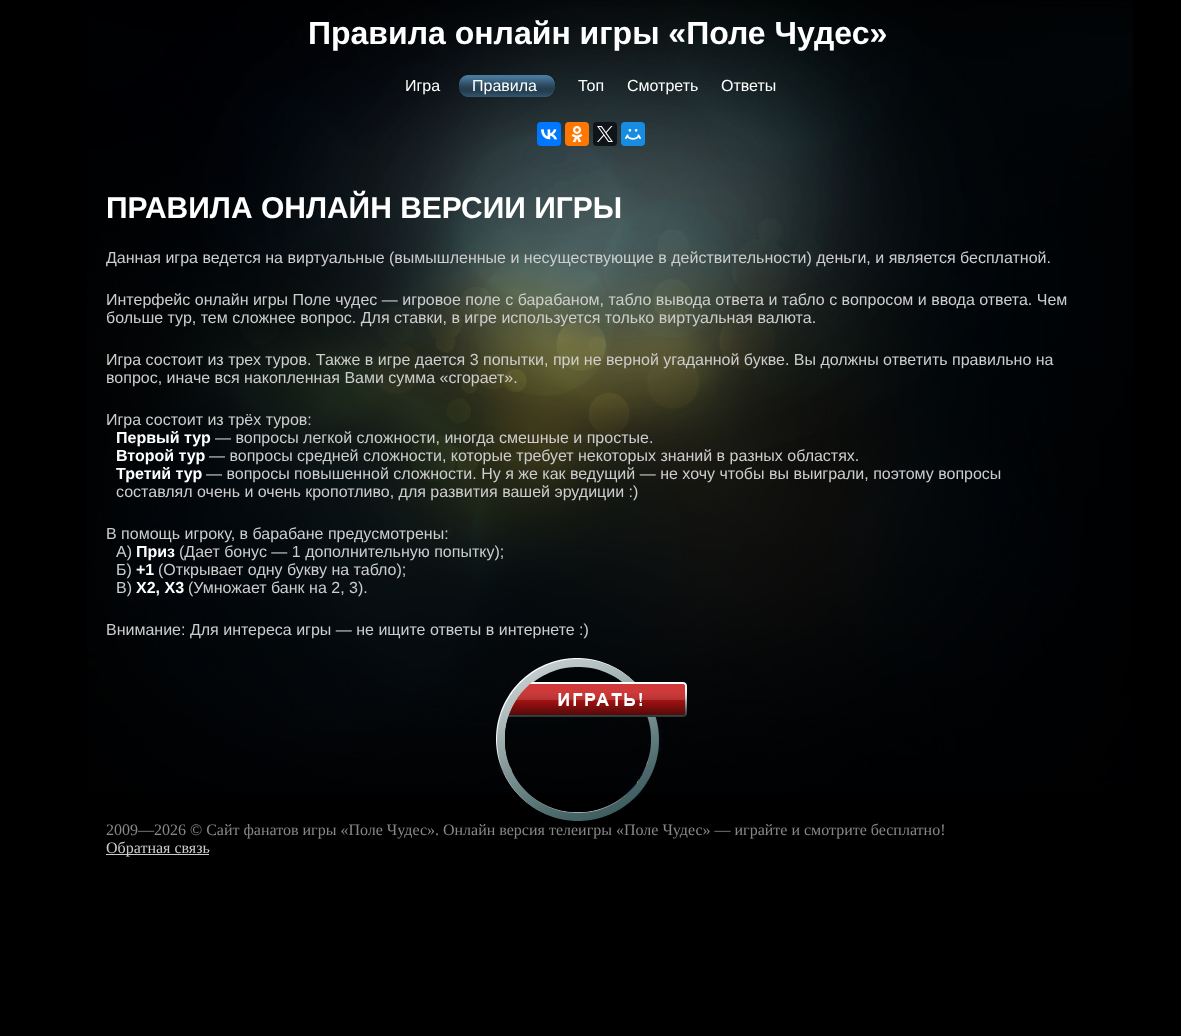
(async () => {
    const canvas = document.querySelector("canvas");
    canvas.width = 1181;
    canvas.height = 1036;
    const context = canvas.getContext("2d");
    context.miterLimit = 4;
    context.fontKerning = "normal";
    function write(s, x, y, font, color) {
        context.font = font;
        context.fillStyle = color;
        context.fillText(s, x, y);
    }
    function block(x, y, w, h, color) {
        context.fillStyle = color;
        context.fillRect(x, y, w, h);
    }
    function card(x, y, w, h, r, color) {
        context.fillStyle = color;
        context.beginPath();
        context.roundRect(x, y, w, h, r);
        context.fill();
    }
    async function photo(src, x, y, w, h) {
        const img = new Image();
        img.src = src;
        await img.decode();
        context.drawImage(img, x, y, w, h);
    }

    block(0, 0, 1181, 1036, "rgb(0, 0, 0)");
    await photo("media/1.png", 87, 0, 1046, 793);
    write("Правила онлайн игры «Поле Чудес»", 308, 44, "bold 32px Liberation Sans", "rgb(255, 255, 255)");
    write("Игра", 405, 91, "16px Liberation Sans", "rgb(255, 255, 255)");
    await photo("media/2.png", 459, 75, 9, 22);
    await photo("media/3.png", 468, 75, 69, 22);
    write("Правила", 472, 91, "16px Liberation Sans", "rgb(255, 255, 255)");
    await photo("media/4.png", 537, 75, 18, 22);
    write("Топ", 578, 91, "16px Liberation Sans", "rgb(255, 255, 255)");
    write("Смотреть", 627, 91, "16px Liberation Sans", "rgb(255, 255, 255)");
    write("Ответы", 721, 91, "16px Liberation Sans", "rgb(255, 255, 255)");
    card(537, 122, 24, 24, 4, "rgb(0, 119, 255)");
    await photo("media/5.png", 541, 129, 16, 11);
    card(565, 122, 24, 24, 4, "rgb(255, 119, 0)");
    await photo("media/6.png", 571, 126, 12, 16);
    card(593, 122, 24, 24, 4, "rgb(15, 20, 25)");
    await photo("media/7.png", 597, 126, 16, 16);
    card(621, 122, 24, 24, 4, "rgb(22, 141, 226)");
    await photo("media/8.png", 625, 129, 16, 11);
    write("ПРАВИЛА ОНЛАЙН ВЕРСИИ ИГРЫ", 106, 218, "bold 30px Liberation Sans", "rgb(255, 255, 255)");
    write("Данная игра ведется на виртуальные (вымышленные и несуществующие в действительности) деньги, и является бесплатной.", 106, 263, "16px Liberation Sans", "rgb(205, 205, 205)");
    write("Интерфейс онлайн игры Поле чудес — игровое поле с барабаном, табло вывода ответа и табло с вопросом и ввода ответа. Чем", 106, 305, "16px Liberation Sans", "rgb(205, 205, 205)");
    write("больше тур, тем сложнее вопрос. Для ставки, в игре используется только виртуальная валюта.", 106, 323, "16px Liberation Sans", "rgb(205, 205, 205)");
    write("Игра состоит из трех туров. Также в игре дается 3 попытки, при не верной угаданной букве. Вы должны ответить правильно на", 106, 365, "16px Liberation Sans", "rgb(205, 205, 205)");
    write("вопрос, иначе вся накопленная Вами сумма «сгорает».", 106, 383, "16px Liberation Sans", "rgb(205, 205, 205)");
    write("Игра состоит из трёх туров:", 106, 425, "16px Liberation Sans", "rgb(205, 205, 205)");
    write("Первый тур", 116, 443, "bold 16px Liberation Sans", "rgb(255, 255, 255)");
    write("— вопросы легкой сложности, иногда смешные и простые.", 215, 443, "16px Liberation Sans", "rgb(205, 205, 205)");
    write("Второй тур", 116, 461, "bold 16px Liberation Sans", "rgb(255, 255, 255)");
    write("— вопросы средней сложности, которые требует некоторых знаний в разных областях.", 209, 461, "16px Liberation Sans", "rgb(205, 205, 205)");
    write("Третий тур", 116, 479, "bold 16px Liberation Sans", "rgb(255, 255, 255)");
    write("— вопросы повышенной сложности. Ну я же как ведущий — не хочу чтобы вы выиграли, поэтому вопросы", 206, 479, "16px Liberation Sans", "rgb(205, 205, 205)");
    write("составлял очень и очень кропотливо, для развития вашей эрудиции :)", 116, 497, "16px Liberation Sans", "rgb(205, 205, 205)");
    write("В помощь игроку, в барабане предусмотрены:", 106, 539, "16px Liberation Sans", "rgb(205, 205, 205)");
    write("А)", 116, 557, "16px Liberation Sans", "rgb(205, 205, 205)");
    write("Приз", 136, 557, "bold 16px Liberation Sans", "rgb(255, 255, 255)");
    write("(Дает бонус — 1 дополнительную попытку);", 179, 557, "16px Liberation Sans", "rgb(205, 205, 205)");
    write("Б)", 116, 575, "16px Liberation Sans", "rgb(205, 205, 205)");
    write("+1", 136, 575, "bold 16px Liberation Sans", "rgb(255, 255, 255)");
    write("(Открывает одну букву на табло);", 158, 575, "16px Liberation Sans", "rgb(205, 205, 205)");
    write("В)", 116, 593, "16px Liberation Sans", "rgb(205, 205, 205)");
    write("Х2, Х3", 136, 593, "bold 16px Liberation Sans", "rgb(255, 255, 255)");
    write("(Умножает банк на 2, 3).", 188, 593, "16px Liberation Sans", "rgb(205, 205, 205)");
    write("Внимание: Для интереса игры — не ищите ответы в интернете :)", 106, 635, "16px Liberation Sans", "rgb(205, 205, 205)");
    await photo("media/9.png", 496, 658, 191, 163);
    write("2009—2026 © Сайт фанатов игры «Поле Чудес». Онлайн версия телеигры «Поле Чудес» — играйте и смотрите бесплатно!", 106, 835, "16px Liberation Serif", "rgb(136, 136, 136)");
    block(106, 854, 103, 1, "rgb(205, 205, 205)");
    write("Обратная связь", 106, 853, "16px Liberation Serif", "rgb(205, 205, 205)");
})();
